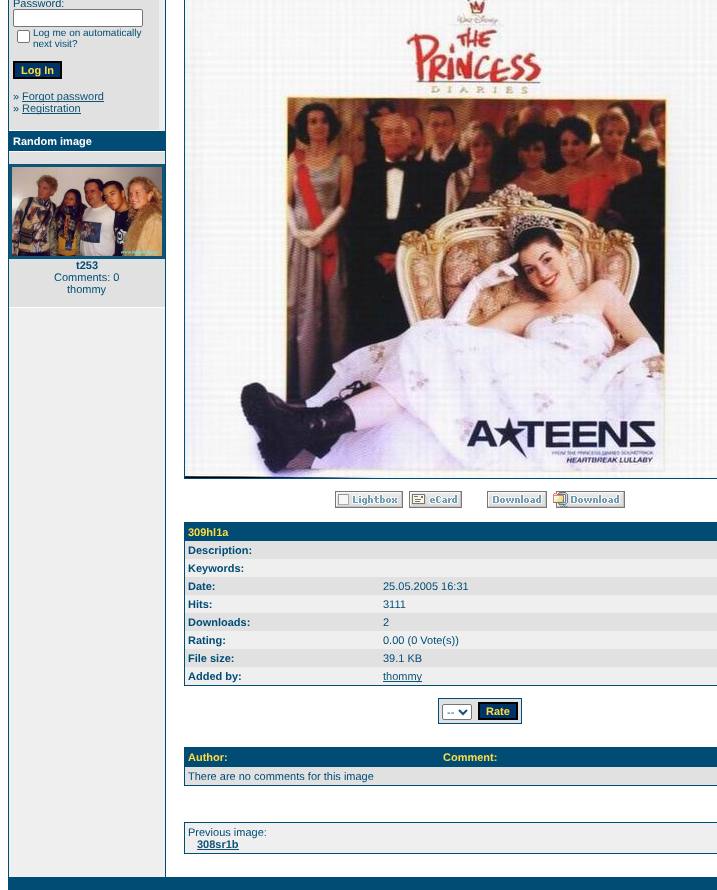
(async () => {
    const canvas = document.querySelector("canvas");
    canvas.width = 717;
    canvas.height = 890;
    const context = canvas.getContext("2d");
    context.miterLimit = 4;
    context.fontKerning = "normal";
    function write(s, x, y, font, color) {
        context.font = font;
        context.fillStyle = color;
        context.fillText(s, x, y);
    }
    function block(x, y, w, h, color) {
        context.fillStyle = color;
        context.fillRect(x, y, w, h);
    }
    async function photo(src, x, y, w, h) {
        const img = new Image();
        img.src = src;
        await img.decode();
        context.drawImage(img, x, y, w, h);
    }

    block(0, 0, 717, 890, "rgb(255, 255, 255)");
    block(8, 0, 709, 890, "rgb(0, 76, 117)");
    block(166, 0, 551, 877, "rgb(255, 255, 255)");
    block(9, 0, 156, 877, "rgb(239, 239, 239)");
    block(9, 0, 150, 130, "rgb(225, 225, 225)");
    write("Password:", 13, 7, "11px Liberation Sans", "rgb(0, 76, 117)");
    context.fillStyle = "rgb(255, 255, 255)";
    context.beginPath();
    context.roundRect(13.5, 9.5, 129, 17, 1.5);
    context.fill();
    context.strokeStyle = "rgb(118, 118, 118)";
    context.stroke();
    context.beginPath();
    context.roundRect(17.5, 30.5, 12, 12, 1.5);
    context.fill();
    context.stroke();
    write("Log me on automatically", 33, 36, "10px Liberation Sans", "rgb(0, 76, 117)");
    write("next visit?", 33, 47, "10px Liberation Sans", "rgb(0, 76, 117)");
    context.fillStyle = "rgb(0, 51, 102)";
    context.beginPath();
    context.rect(14, 62, 47, 16);
    context.fill();
    context.strokeStyle = "rgb(0, 0, 0)";
    context.lineWidth = 2;
    context.stroke();
    write("Log In", 21, 74, "bold 11px Liberation Sans", "rgb(252, 220, 67)");
    write("»", 13, 100, "11px Liberation Sans", "rgb(0, 76, 117)");
    block(22, 101, 82, 1, "rgb(15, 84, 117)");
    write("Forgot password", 22, 100, "11px Liberation Sans", "rgb(15, 84, 117)");
    write("»", 13, 112, "11px Liberation Sans", "rgb(0, 76, 117)");
    block(22, 113, 59, 1, "rgb(15, 84, 117)");
    write("Registration", 22, 112, "11px Liberation Sans", "rgb(15, 84, 117)");
    block(9, 130, 150, 1, "rgb(255, 255, 255)");
    block(9, 131, 156, 20, "rgb(0, 76, 117)");
    write("Random image", 13, 145, "bold 11px Liberation Sans", "rgb(255, 255, 255)");
    block(9, 151, 156, 1, "rgb(255, 255, 255)");
    block(9, 152, 156, 155, "rgb(225, 225, 225)");
    context.strokeStyle = "rgb(15, 84, 117)";
    context.lineWidth = 3;
    context.strokeRect(10.5, 165.5, 153, 92);
    await photo("media/1.png", 12, 167, 150, 89);
    write("t253", 76, 269, "bold 11px Liberation Sans", "rgb(0, 76, 117)");
    write("Comments: 0", 54, 281, "11px Liberation Sans", "rgb(0, 76, 117)");
    write("thommy", 67, 293, "11px Liberation Sans", "rgb(0, 76, 117)");
    block(9, 307, 156, 1, "rgb(255, 255, 255)");
    context.strokeStyle = "rgb(0, 76, 117)";
    context.lineWidth = 1;
    context.strokeRect(184.5, -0.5, 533, 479);
    await photo("media/2.png", 185, 0, 532, 478);
    await photo("media/3.png", 335, 491, 68, 17);
    await photo("media/4.png", 409, 491, 53, 17);
    await photo("media/5.png", 487, 491, 60, 17);
    await photo("media/6.png", 553, 491, 72, 17);
    block(184, 522, 533, 164, "rgb(0, 76, 117)");
    write("309hl1a", 188, 536, "bold 11px Liberation Sans", "rgb(252, 220, 67)");
    block(185, 541, 532, 18, "rgb(225, 225, 225)");
    write("Description:", 188, 554, "bold 11px Liberation Sans", "rgb(0, 76, 117)");
    block(185, 559, 532, 18, "rgb(239, 239, 239)");
    write("Keywords:", 188, 572, "bold 11px Liberation Sans", "rgb(0, 76, 117)");
    block(185, 577, 532, 18, "rgb(225, 225, 225)");
    write("Date:", 188, 590, "bold 11px Liberation Sans", "rgb(0, 76, 117)");
    write("25.05.2005 16:31", 383, 590, "11px Liberation Sans", "rgb(0, 76, 117)");
    block(185, 595, 532, 18, "rgb(239, 239, 239)");
    write("Hits:", 188, 608, "bold 11px Liberation Sans", "rgb(0, 76, 117)");
    write("3111", 383, 608, "11px Liberation Sans", "rgb(0, 76, 117)");
    block(185, 613, 532, 18, "rgb(225, 225, 225)");
    write("Downloads:", 188, 626, "bold 11px Liberation Sans", "rgb(0, 76, 117)");
    write("2", 383, 626, "11px Liberation Sans", "rgb(0, 76, 117)");
    block(185, 631, 532, 18, "rgb(239, 239, 239)");
    write("Rating:", 188, 644, "bold 11px Liberation Sans", "rgb(0, 76, 117)");
    write("0.00 (0 Vote(s))", 383, 644, "11px Liberation Sans", "rgb(0, 76, 117)");
    block(185, 649, 532, 18, "rgb(225, 225, 225)");
    write("File size:", 188, 662, "bold 11px Liberation Sans", "rgb(0, 76, 117)");
    write("39.1 KB", 383, 662, "11px Liberation Sans", "rgb(0, 76, 117)");
    block(185, 667, 532, 18, "rgb(239, 239, 239)");
    write("Added by:", 188, 680, "bold 11px Liberation Sans", "rgb(0, 76, 117)");
    block(383, 681, 39, 1, "rgb(15, 84, 117)");
    write("thommy", 383, 680, "11px Liberation Sans", "rgb(15, 84, 117)");
    block(438, 698, 84, 26, "rgb(0, 76, 117)");
    block(439, 699, 82, 24, "rgb(225, 225, 225)");
    context.fillStyle = "rgb(255, 255, 255)";
    context.beginPath();
    context.roundRect(442.5, 704.5, 29, 15, 1.5);
    context.fill();
    context.strokeStyle = "rgb(118, 118, 118)";
    context.stroke();
    context.beginPath();
    context.moveTo(459, 710);
    context.lineTo(463, 714);
    context.lineTo(467, 710);
    context.strokeStyle = "rgb(15, 84, 117)";
    context.lineWidth = 2;
    context.stroke();
    write("--", 447, 716, "11px Liberation Sans", "rgb(15, 84, 117)");
    context.fillStyle = "rgb(0, 51, 102)";
    context.beginPath();
    context.rect(479, 703, 38, 16);
    context.fill();
    context.strokeStyle = "rgb(0, 0, 0)";
    context.stroke();
    write("Rate", 486, 715, "bold 11px Liberation Sans", "rgb(252, 220, 67)");
    block(184, 747, 533, 39, "rgb(0, 76, 117)");
    write("Author:", 188, 761, "bold 11px Liberation Sans", "rgb(252, 220, 67)");
    write("Comment:", 443, 761, "bold 11px Liberation Sans", "rgb(252, 220, 67)");
    block(185, 767, 532, 18, "rgb(225, 225, 225)");
    write("There are no comments for this image", 188, 780, "11px Liberation Sans", "rgb(0, 76, 117)");
    block(184, 822, 533, 32, "rgb(0, 76, 117)");
    block(185, 823, 532, 30, "rgb(239, 239, 239)");
    write("Previous image:", 188, 836, "11px Liberation Sans", "rgb(0, 76, 117)");
    write("308sr1b", 197, 848, "bold 11px Liberation Sans", "rgb(15, 84, 117)");
    block(197, 849, 42, 1, "rgb(15, 84, 117)");
})();
